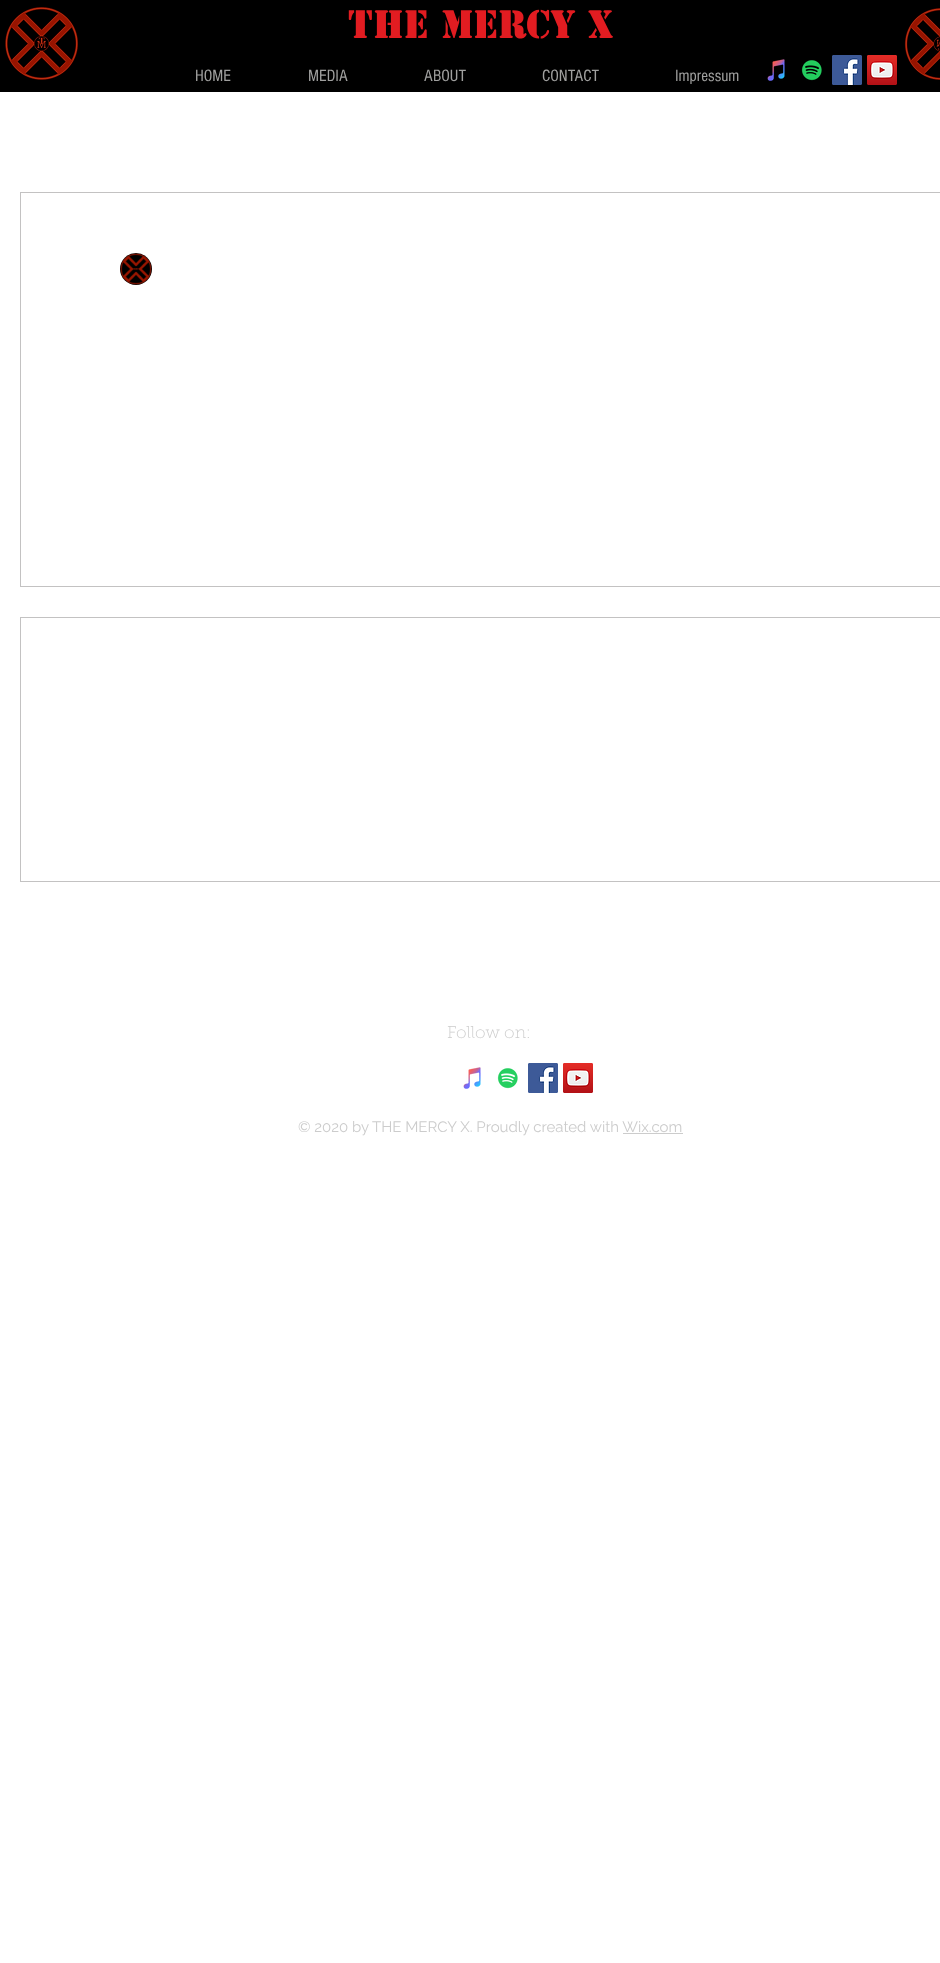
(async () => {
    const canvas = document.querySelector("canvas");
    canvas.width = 940;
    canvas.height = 1963;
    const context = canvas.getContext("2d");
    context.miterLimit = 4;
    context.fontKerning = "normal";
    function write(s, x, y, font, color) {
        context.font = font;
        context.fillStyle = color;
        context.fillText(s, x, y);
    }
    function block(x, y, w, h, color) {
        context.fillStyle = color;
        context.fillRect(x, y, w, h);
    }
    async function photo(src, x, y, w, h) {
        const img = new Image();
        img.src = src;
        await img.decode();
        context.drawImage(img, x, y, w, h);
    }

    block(0, 0, 940, 1963, "rgb(255, 255, 255)");
    block(0, 0, 940, 92, "rgb(0, 0, 0)");
    await photo("media/1.png", 5, 7, 73, 73);
    write("the mercy x", 348, 38, "bold 37px 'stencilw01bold'", "rgb(226, 28, 33)");
    await photo("media/2.png", 904, 8, 36, 72);
    write("HOME", 195, 81, "17px 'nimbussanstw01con'", "rgb(160, 160, 159)");
    write("MEDIA", 308, 81, "17px 'nimbussanstw01con'", "rgb(160, 160, 159)");
    write("ABOUT", 424, 81, "17px 'nimbussanstw01con'", "rgb(160, 160, 159)");
    write("CONTACT", 542, 81, "17px 'nimbussanstw01con'", "rgb(160, 160, 159)");
    write("Impressum", 675, 81, "17px 'nimbussanstw01con'", "rgb(160, 160, 159)");
    await photo("media/3.png", 767, 59, 18, 22);
    await photo("media/4.png", 801, 60, 21, 21);
    await photo("media/5.png", 832, 55, 30, 30);
    await photo("media/6.png", 867, 55, 30, 30);
    context.strokeStyle = "rgb(195, 194, 194)";
    context.strokeRect(20.5, 192.5, 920, 394);
    await photo("media/7.png", 120, 253, 32, 32);
    context.strokeRect(20.5, 617.5, 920, 264);
    write("Follow on:", 447, 1038, "100 17px 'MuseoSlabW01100'", "rgb(204, 204, 204)");
    await photo("media/8.png", 463, 1067, 18, 22);
    await photo("media/9.png", 497, 1068, 21, 21);
    await photo("media/10.png", 528, 1063, 30, 30);
    await photo("media/11.png", 563, 1063, 30, 30);
    write("© 2020 by", 298, 1132, "15px Raleway", "rgb(204, 204, 204)");
    write("THE MERCY X. Proudly created with Wix.com", 372, 1132, "15px Raleway", "rgb(204, 204, 204)");
    block(623, 1133, 60, 1, "rgb(204, 204, 204)");
})();
